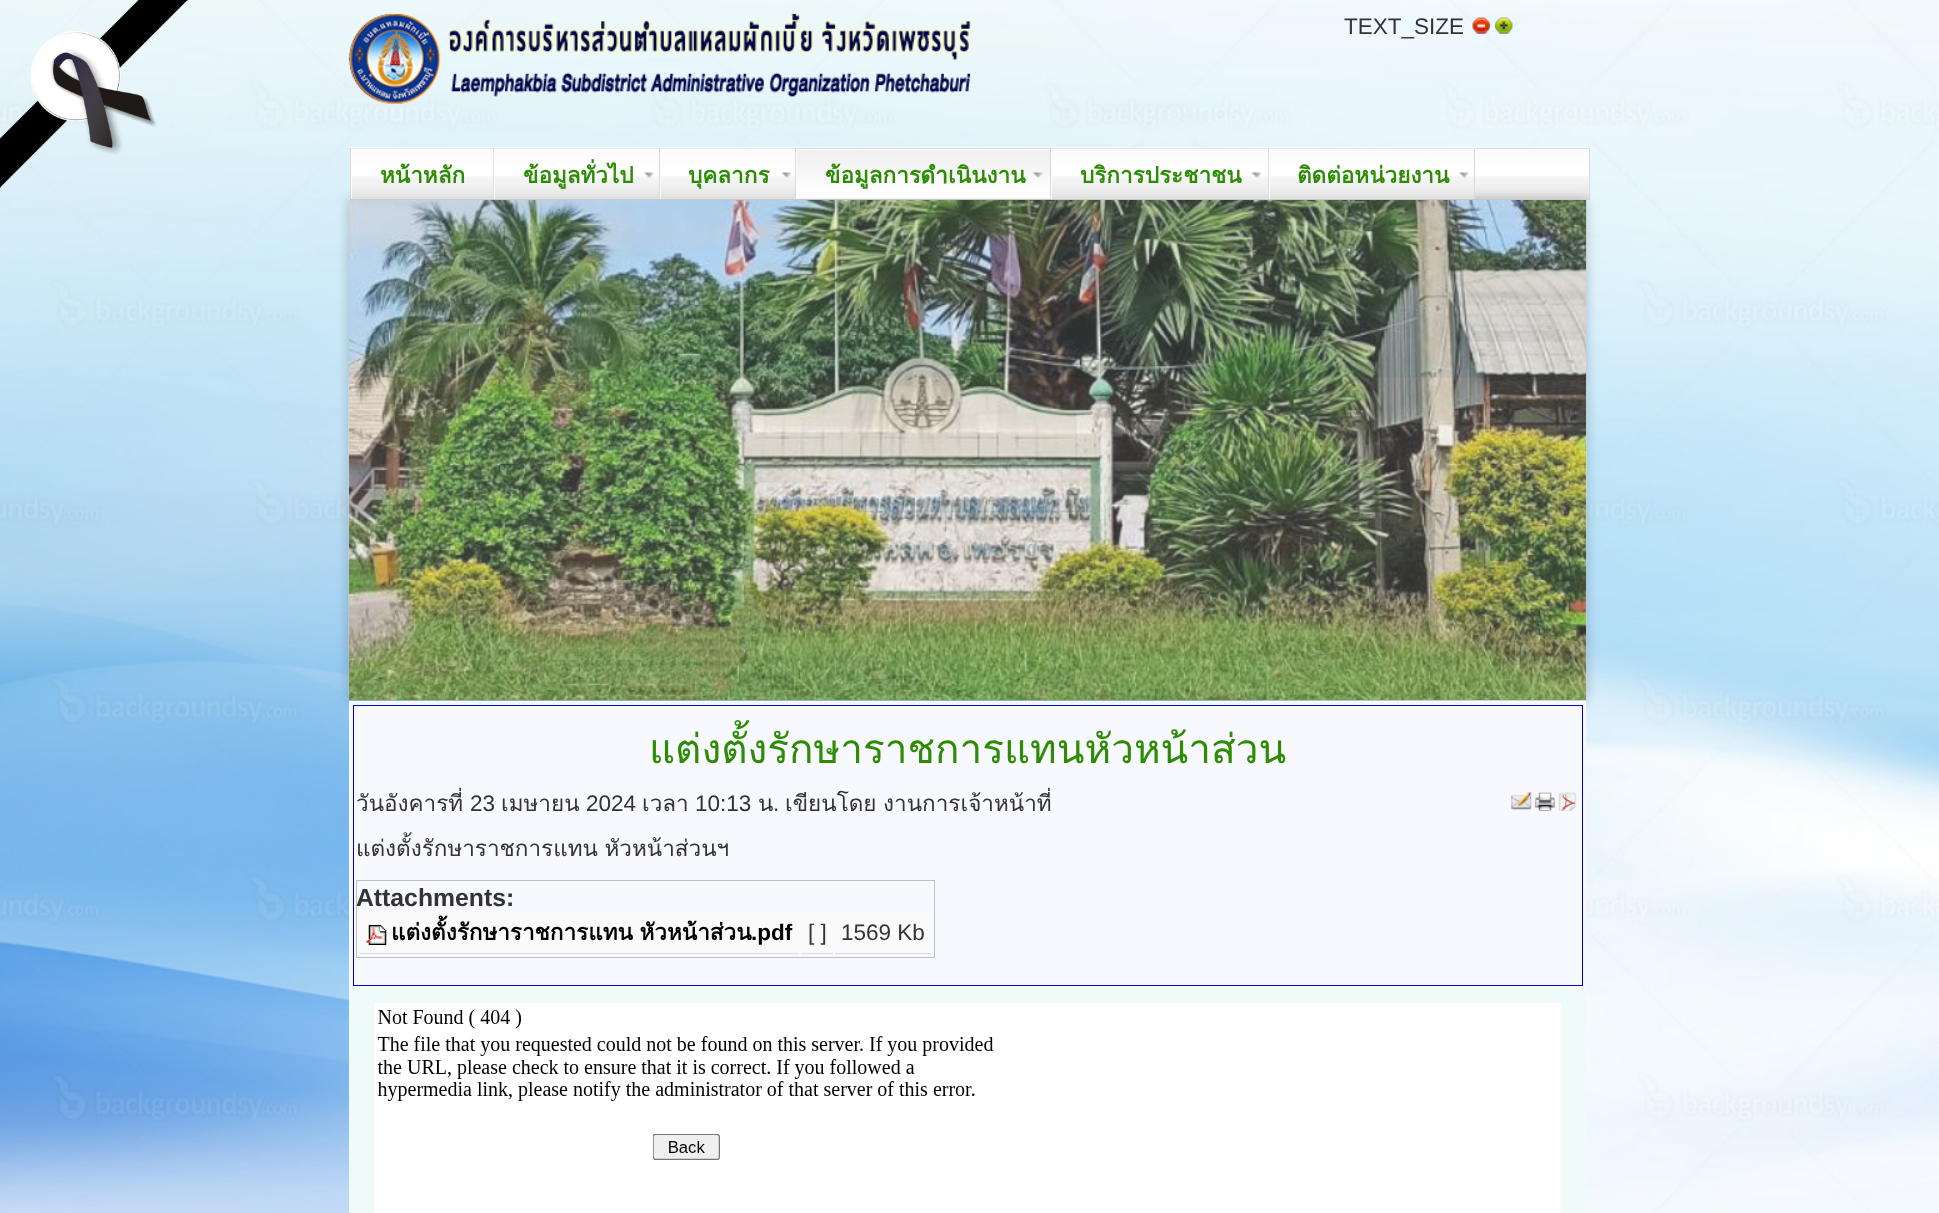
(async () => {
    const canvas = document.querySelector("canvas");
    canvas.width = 1939;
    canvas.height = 1213;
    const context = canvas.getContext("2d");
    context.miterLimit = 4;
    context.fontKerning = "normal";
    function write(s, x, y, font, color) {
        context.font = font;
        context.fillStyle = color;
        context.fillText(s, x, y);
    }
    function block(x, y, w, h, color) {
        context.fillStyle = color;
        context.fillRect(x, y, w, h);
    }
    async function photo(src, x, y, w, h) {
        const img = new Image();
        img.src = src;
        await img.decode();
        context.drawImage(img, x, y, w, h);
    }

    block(0, 0, 1939, 1213, "rgb(255, 255, 255)");
    await photo("media/1.png", 0, 0, 1939, 1213);
    await photo("media/2.png", 0, 0, 188, 188);
    await photo("media/3.png", 348, 13, 626, 91);
    write("TEXT_SIZE", 1344, 34, "22.5px Liberation Sans", "rgb(51, 51, 51)");
    await photo("media/4.png", 1472, 17, 18, 17);
    await photo("media/5.png", 1495, 17, 18, 17);
    await photo("media/6.png", 350, 147, 1240, 52);
    context.strokeStyle = "rgb(220, 220, 221)";
    context.strokeRect(350.5, 148.5, 1239, 51);
    context.save();
    context.beginPath();
    context.moveTo(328, 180);
    context.lineTo(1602, 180);
    context.lineTo(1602, 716);
    context.lineTo(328, 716);
    context.closePath();
    context.moveTo(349, 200);
    context.lineTo(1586, 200);
    context.lineTo(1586, 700);
    context.lineTo(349, 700);
    context.closePath();
    context.clip("evenodd");
    context.fillStyle = "rgba(0, 0, 0, 0.1)";
    context.filter = "blur(5.5px)";
    context.beginPath();
    context.rect(346, 198, 1238, 500);
    context.fill();
    context.filter = "none";
    context.restore();
    context.save();
    context.beginPath();
    context.moveTo(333, 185);
    context.lineTo(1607, 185);
    context.lineTo(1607, 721);
    context.lineTo(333, 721);
    context.closePath();
    context.moveTo(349, 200);
    context.lineTo(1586, 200);
    context.lineTo(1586, 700);
    context.lineTo(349, 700);
    context.closePath();
    context.clip("evenodd");
    context.fillStyle = "rgba(0, 0, 0, 0.1)";
    context.filter = "blur(5.5px)";
    context.beginPath();
    context.rect(351, 203, 1238, 500);
    context.fill();
    context.filter = "none";
    context.restore();
    await photo("media/7.png", 351, 148, 143, 51);
    block(493, 149, 1, 50, "rgb(217, 217, 217)");
    block(351, 149, 1, 50, "rgb(255, 255, 255)");
    write("หน้าหลัก", 380, 183, "bold 22.5px Loma", "rgb(45, 140, 4)");
    await photo("media/8.png", 493, 148, 167, 51);
    block(659, 149, 1, 50, "rgb(217, 217, 217)");
    block(494, 149, 1, 50, "rgb(255, 255, 255)");
    await photo("media/9.png", 643, 172, 11, 6);
    write("ข้อมูลทั่วไป", 523, 183, "bold 22.5px Loma", "rgb(45, 140, 4)");
    await photo("media/10.png", 660, 148, 137, 51);
    block(795, 149, 1, 50, "rgb(217, 217, 217)");
    block(660, 149, 1, 50, "rgb(255, 255, 255)");
    await photo("media/11.png", 781, 172, 11, 6);
    write("บุคลากร", 688, 183, "bold 22.5px Loma", "rgb(45, 140, 4)");
    await photo("media/12.png", 797, 149, 253, 50);
    block(1050, 149, 1, 50, "rgb(217, 217, 217)");
    block(796, 149, 1, 50, "rgb(255, 255, 255)");
    await photo("media/13.png", 1032, 172, 11, 6);
    write("ข้อมูลการดำเนินงาน", 825, 183, "bold 22.5px Loma", "rgb(45, 140, 4)");
    await photo("media/14.png", 1051, 148, 218, 51);
    block(1268, 149, 1, 50, "rgb(217, 217, 217)");
    block(1051, 149, 1, 50, "rgb(255, 255, 255)");
    await photo("media/15.png", 1251, 172, 11, 6);
    write("บริการประชาชน", 1080, 183, "bold 22.5px Loma", "rgb(45, 140, 4)");
    await photo("media/16.png", 1268, 148, 207, 51);
    block(1474, 149, 1, 50, "rgb(217, 217, 217)");
    block(1269, 149, 1, 50, "rgb(255, 255, 255)");
    await photo("media/9.png", 1458, 172, 11, 6);
    write("ติดต่อหน่วยงาน", 1297, 183, "bold 22.5px Loma", "rgb(45, 140, 4)");
    await photo("media/17.png", 348, 377, 1239, 323);
    await photo("media/18.png", 348, 200, 1239, 500);
    block(349, 701, 1237, 289, "rgb(248, 248, 255)");
    context.strokeStyle = "rgb(0, 0, 205)";
    context.strokeRect(353.5, 705.5, 1229, 280);
    write("แต่งตั้งรักษาราชการแทนหัวหน้าส่วน", 649, 763, "40.5px Loma", "rgb(45, 140, 4)");
    context.save();
    context.beginPath();
    context.rect(354, 706, 1227, 279);
    context.clip();
    write("วันอังคารที่", 356, 811, "22.5px Loma", "rgb(51, 51, 51)");
    context.restore();
    write("23", 470, 811, "22.5px Liberation Sans", "rgb(51, 51, 51)");
    write("เมษายน", 501, 811, "22.5px Loma", "rgb(51, 51, 51)");
    write("2024", 586, 811, "22.5px Liberation Sans", "rgb(51, 51, 51)");
    write("เวลา", 642, 811, "22.5px Loma", "rgb(51, 51, 51)");
    write("10:13", 695, 811, "22.5px Liberation Sans", "rgb(51, 51, 51)");
    write("น", 758, 811, "22.5px Loma", "rgb(51, 51, 51)");
    write(".", 773, 811, "22.5px Liberation Sans", "rgb(51, 51, 51)");
    context.wordSpacing = "-1px";
    write("เขียนโดย งานการเจ้าหน้าที่", 785, 811, "22.5px Loma", "rgb(51, 51, 51)");
    await photo("media/19.png", 1511, 792, 21, 18);
    await photo("media/20.png", 1535, 792, 20, 19);
    await photo("media/21.png", 1558, 792, 19, 19);
    write("แต่งตั้งรักษาราชการแทน หัวหน้าส่วนฯ", 356, 856, "22.5px Loma", "rgb(51, 51, 51)");
    context.strokeStyle = "rgb(192, 192, 192)";
    context.strokeRect(356.5, 880.5, 578, 77);
    context.wordSpacing = "0px";
    write("Attachments:", 356, 906, "bold 24.75px Liberation Sans", "rgb(51, 51, 51)");
    block(360, 914, 439, 39, "rgb(250, 250, 250)");
    block(360, 953, 439, 1, "rgb(221, 221, 221)");
    await photo("media/22.png", 366, 925, 21, 20);
    context.wordSpacing = "-1px";
    write("แต่งตั้งรักษาราชการแทน หัวหน้าส่วน", 391, 940, "bold 22.5px Loma", "rgb(3, 0, 0)");
    context.wordSpacing = "0px";
    write(".pdf", 751, 940, "bold 22.5px Liberation Sans", "rgb(3, 0, 0)");
    block(801, 914, 32, 39, "rgb(250, 250, 250)");
    block(801, 953, 32, 1, "rgb(221, 221, 221)");
    write("[ ]", 808, 940, "22.5px Liberation Sans", "rgb(51, 51, 51)");
    block(835, 914, 96, 39, "rgb(250, 250, 250)");
    block(835, 953, 96, 1, "rgb(221, 221, 221)");
    write("1569 Kb", 841, 940, "22.5px Liberation Sans", "rgb(51, 51, 51)");
    block(349, 990, 1237, 223, "rgb(239, 251, 248)");
    await photo("media/23.png", 374, 1002, 1187, 211);
})();
